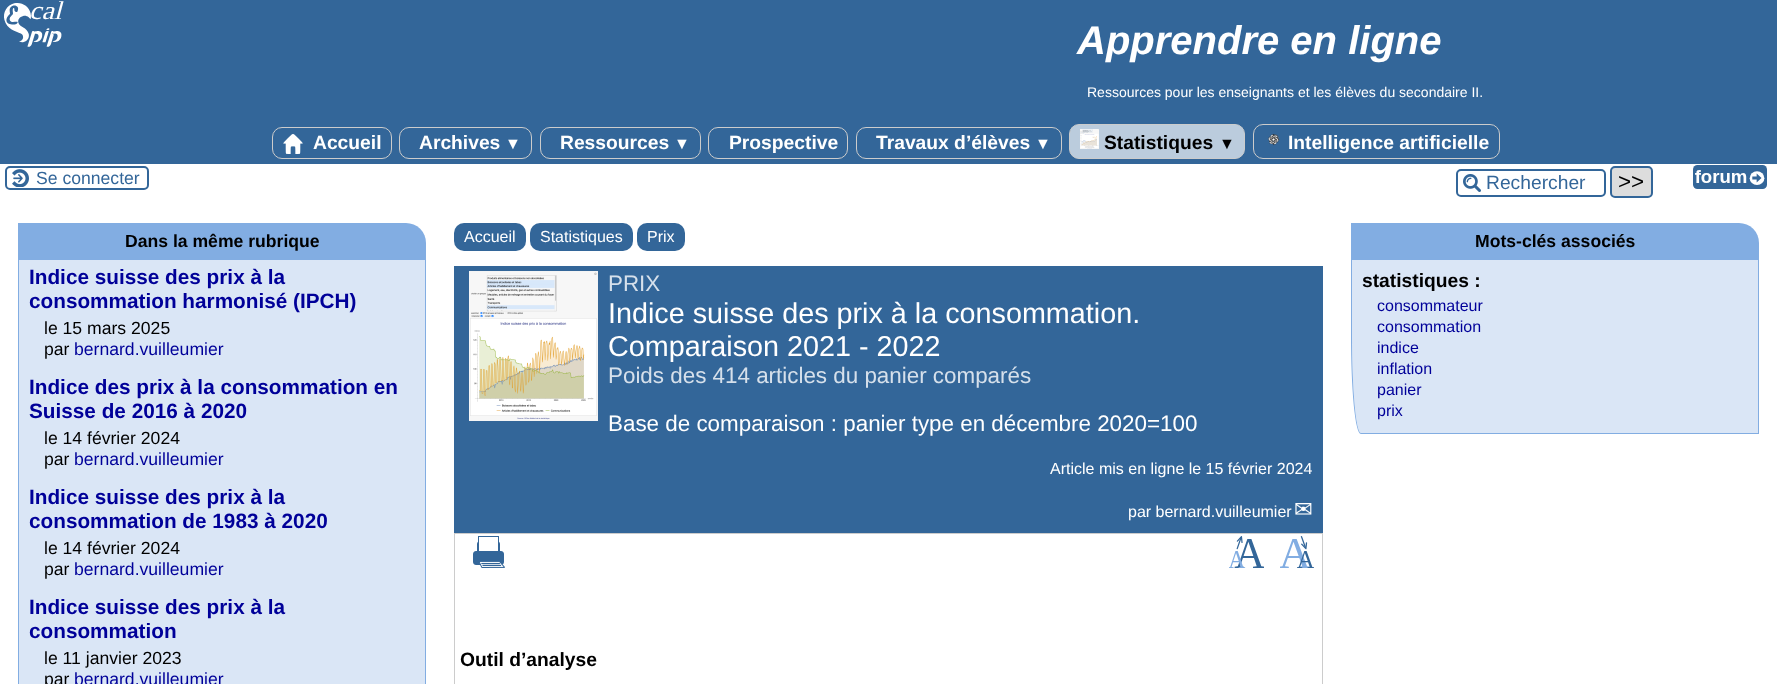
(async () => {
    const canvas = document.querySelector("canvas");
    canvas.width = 1777;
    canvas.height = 684;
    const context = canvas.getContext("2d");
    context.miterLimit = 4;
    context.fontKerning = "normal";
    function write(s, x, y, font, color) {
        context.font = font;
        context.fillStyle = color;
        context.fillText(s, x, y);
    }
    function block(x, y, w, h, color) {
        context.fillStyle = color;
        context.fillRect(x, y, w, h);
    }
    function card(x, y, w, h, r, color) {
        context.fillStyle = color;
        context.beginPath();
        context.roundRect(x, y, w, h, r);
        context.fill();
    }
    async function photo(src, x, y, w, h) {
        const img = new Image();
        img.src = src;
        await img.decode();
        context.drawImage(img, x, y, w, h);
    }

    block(0, 0, 1777, 684, "rgb(255, 255, 255)");
    block(0, 0, 1777, 164, "rgb(51, 102, 153)");
    await photo("media/1.png", 4, 1, 60, 46);
    write("Apprendre en ligne", 1077, 54, "italic bold 40px Liberation Sans", "rgb(255, 255, 255)");
    write("Ressources pour les enseignants et les élèves du secondaire II.", 1087, 97, "14px Liberation Sans", "rgb(255, 255, 255)");
    context.beginPath();
    context.roundRect(272.5, 127.5, 119, 31, 9.5);
    context.strokeStyle = "rgb(204, 204, 204)";
    context.stroke();
    await photo("media/2.png", 283, 134, 20, 20);
    write("Accueil", 313, 149, "bold 19.25px Liberation Sans", "rgb(255, 255, 255)");
    context.beginPath();
    context.roundRect(399.5, 127.5, 132, 31, 9.5);
    context.stroke();
    write("Archives", 419, 149, "bold 19.25px Liberation Sans", "rgb(255, 255, 255)");
    write("▼", 505, 149, "bold 16px Liberation Sans", "rgb(255, 255, 255)");
    context.beginPath();
    context.roundRect(540.5, 127.5, 160, 31, 9.5);
    context.stroke();
    write("Ressources", 560, 149, "bold 19.25px Liberation Sans", "rgb(255, 255, 255)");
    write("▼", 674, 149, "bold 16px Liberation Sans", "rgb(255, 255, 255)");
    context.beginPath();
    context.roundRect(708.5, 127.5, 139, 31, 9.5);
    context.stroke();
    write("Prospective", 729, 149, "bold 19.25px Liberation Sans", "rgb(255, 255, 255)");
    context.beginPath();
    context.roundRect(856.5, 127.5, 205, 31, 9.5);
    context.stroke();
    write("Travaux d’élèves", 876, 149, "bold 19.25px Liberation Sans", "rgb(255, 255, 255)");
    write("▼", 1035, 149, "bold 16px Liberation Sans", "rgb(255, 255, 255)");
    context.fillStyle = "rgb(187, 204, 221)";
    context.beginPath();
    context.roundRect(1069.5, 124.5, 175, 34, 9.5);
    context.fill();
    context.stroke();
    await photo("media/3.png", 1080, 129, 19, 20);
    write("Statistiques", 1104, 149, "bold 19.25px Liberation Sans", "rgb(0, 0, 0)");
    write("▼", 1219, 149, "bold 16px Liberation Sans", "rgb(0, 0, 0)");
    context.beginPath();
    context.roundRect(1253.5, 124.5, 246, 34, 9.5);
    context.stroke();
    await photo("media/4.png", 1268, 134, 12, 12);
    write("Intelligence artificielle", 1288, 149, "bold 19.25px Liberation Sans", "rgb(255, 255, 255)");
    await photo("media/5.png", 12, 169, 17, 18);
    context.beginPath();
    context.roundRect(6, 167, 142, 22, 4);
    context.strokeStyle = "rgb(51, 102, 153)";
    context.lineWidth = 2;
    context.stroke();
    write("Se connecter", 36, 184, "17.6px Liberation Sans", "rgb(51, 102, 153)");
    await photo("media/6.png", 1463, 174, 18, 18);
    context.beginPath();
    context.roundRect(1457, 170, 148, 26, 4);
    context.stroke();
    write("Rechercher", 1486, 189, "19.25px Liberation Sans", "rgb(51, 102, 153)");
    context.fillStyle = "rgb(221, 221, 221)";
    context.beginPath();
    context.roundRect(1611, 167, 41, 30, 4);
    context.fill();
    context.stroke();
    write(">>", 1618, 189, "22.4px Liberation Sans", "rgb(0, 0, 0)");
    await photo("media/7.png", 1693, 165, 74, 24);
    context.fillStyle = "rgb(130, 173, 226)";
    context.beginPath();
    context.roundRect(18, 223, 408, 37, [0, 20, 0, 0]);
    context.fill();
    write("Dans la même rubrique", 125, 247, "bold 17.6px Liberation Sans", "rgb(0, 0, 0)");
    context.fillStyle = "rgb(218, 230, 246)";
    context.beginPath();
    context.moveTo(19, 260);
    context.lineTo(425, 260);
    context.lineTo(425, 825);
    context.lineTo(28, 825);
    context.bezierCurveTo(23, 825, 19, 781, 19, 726);
    context.closePath();
    context.fill();
    context.fillStyle = "rgb(130, 173, 226)";
    context.beginPath();
    context.moveTo(18, 260);
    context.lineTo(426, 260);
    context.lineTo(426, 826);
    context.lineTo(28, 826);
    context.bezierCurveTo(22, 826, 18, 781, 18, 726);
    context.closePath();
    context.moveTo(19, 260);
    context.lineTo(425, 260);
    context.lineTo(425, 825);
    context.lineTo(28, 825);
    context.bezierCurveTo(23, 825, 19, 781, 19, 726);
    context.closePath();
    context.fill("evenodd");
    write("Indice suisse des prix à la", 29, 284, "bold 20.75px Liberation Sans", "rgb(0, 0, 153)");
    write("consommation harmonisé (IPCH)", 29, 308, "bold 20.75px Liberation Sans", "rgb(0, 0, 153)");
    write("le 15 mars 2025", 44, 334, "17.6px Liberation Sans", "rgb(0, 0, 0)");
    write("par", 44, 355, "17.6px Liberation Sans", "rgb(0, 0, 0)");
    write("bernard.vuilleumier", 74, 355, "17.6px Liberation Sans", "rgb(0, 0, 153)");
    write("Indice des prix à la consommation en", 29, 394, "bold 20.75px Liberation Sans", "rgb(0, 0, 153)");
    write("Suisse de 2016 à 2020", 29, 418, "bold 20.75px Liberation Sans", "rgb(0, 0, 153)");
    write("le 14 février 2024", 44, 444, "17.6px Liberation Sans", "rgb(0, 0, 0)");
    write("par", 44, 465, "17.6px Liberation Sans", "rgb(0, 0, 0)");
    write("bernard.vuilleumier", 74, 465, "17.6px Liberation Sans", "rgb(0, 0, 153)");
    write("Indice suisse des prix à la", 29, 504, "bold 20.75px Liberation Sans", "rgb(0, 0, 153)");
    write("consommation de 1983 à 2020", 29, 528, "bold 20.75px Liberation Sans", "rgb(0, 0, 153)");
    write("le 14 février 2024", 44, 554, "17.6px Liberation Sans", "rgb(0, 0, 0)");
    write("par", 44, 575, "17.6px Liberation Sans", "rgb(0, 0, 0)");
    write("bernard.vuilleumier", 74, 575, "17.6px Liberation Sans", "rgb(0, 0, 153)");
    write("Indice suisse des prix à la", 29, 614, "bold 20.75px Liberation Sans", "rgb(0, 0, 153)");
    write("consommation", 29, 638, "bold 20.75px Liberation Sans", "rgb(0, 0, 153)");
    write("le 11 janvier 2023", 44, 664, "17.6px Liberation Sans", "rgb(0, 0, 0)");
    write("par", 44, 685, "17.6px Liberation Sans", "rgb(0, 0, 0)");
    write("bernard.vuilleumier", 74, 685, "17.6px Liberation Sans", "rgb(0, 0, 153)");
    card(454, 223, 72, 28, 10, "rgb(51, 102, 153)");
    write("Accueil", 464, 242, "16px Liberation Sans", "rgb(255, 255, 255)");
    card(530, 223, 103, 28, 10, "rgb(51, 102, 153)");
    write("Statistiques", 540, 242, "16px Liberation Sans", "rgb(255, 255, 255)");
    card(637, 223, 48, 28, 10, "rgb(51, 102, 153)");
    write("Prix", 647, 242, "16px Liberation Sans", "rgb(255, 255, 255)");
    block(454, 266, 869, 267, "rgb(51, 102, 153)");
    await photo("media/8.png", 469, 271, 129, 150);
    write("PRIX", 608, 291, "22.4px Liberation Sans", "rgb(214, 224, 235)");
    write("Indice suisse des prix à la consommation.", 608, 323, "28.75px Liberation Sans", "rgb(255, 255, 255)");
    write("Comparaison 2021 - 2022", 608, 356, "28.75px Liberation Sans", "rgb(255, 255, 255)");
    write("Poids des 414 articles du panier comparés", 608, 383, "22.4px Liberation Sans", "rgb(214, 224, 235)");
    write("Base de comparaison : panier type en décembre 2020=100", 608, 431, "22.4px Liberation Sans", "rgb(255, 255, 255)");
    write("Article mis en ligne le 15 février 2024", 1050, 474, "16px Liberation Sans", "rgb(255, 255, 255)");
    write("par bernard.vuilleumier", 1128, 517, "16px Liberation Sans", "rgb(255, 255, 255)");
    write("✉", 1294, 517, "22.4px DejaVu Sans", "rgb(255, 255, 255)");
    context.strokeStyle = "rgb(204, 204, 204)";
    context.lineWidth = 1;
    context.strokeRect(454.5, 533.5, 868, 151);
    await photo("media/9.png", 473, 536, 32, 32);
    await photo("media/10.png", 1229, 536, 35, 32);
    await photo("media/11.png", 1280, 536, 34, 32);
    write("Outil d’analyse", 460, 666, "bold 19.25px Liberation Sans", "rgb(0, 0, 0)");
    context.fillStyle = "rgb(130, 173, 226)";
    context.beginPath();
    context.roundRect(1351, 223, 408, 37, [0, 20, 0, 0]);
    context.fill();
    write("Mots-clés associés", 1475, 247, "bold 17.6px Liberation Sans", "rgb(0, 0, 0)");
    context.fillStyle = "rgb(218, 230, 246)";
    context.beginPath();
    context.moveTo(1352, 260);
    context.lineTo(1758, 260);
    context.lineTo(1758, 433);
    context.lineTo(1361, 433);
    context.bezierCurveTo(1356, 433, 1352, 389, 1352, 334);
    context.closePath();
    context.fill();
    context.fillStyle = "rgb(130, 173, 226)";
    context.beginPath();
    context.moveTo(1351, 260);
    context.lineTo(1759, 260);
    context.lineTo(1759, 434);
    context.lineTo(1361, 434);
    context.bezierCurveTo(1355, 434, 1351, 389, 1351, 334);
    context.closePath();
    context.moveTo(1352, 260);
    context.lineTo(1758, 260);
    context.lineTo(1758, 433);
    context.lineTo(1361, 433);
    context.bezierCurveTo(1356, 433, 1352, 389, 1352, 334);
    context.closePath();
    context.fill("evenodd");
    write("statistiques :", 1362, 287, "bold 19.25px Liberation Sans", "rgb(0, 0, 0)");
    write("consommateur", 1377, 311, "16px Liberation Sans", "rgb(0, 0, 153)");
    write("consommation", 1377, 332, "16px Liberation Sans", "rgb(0, 0, 153)");
    write("indice", 1377, 353, "16px Liberation Sans", "rgb(0, 0, 153)");
    write("inflation", 1377, 374, "16px Liberation Sans", "rgb(0, 0, 153)");
    write("panier", 1377, 395, "16px Liberation Sans", "rgb(0, 0, 153)");
    write("prix", 1377, 416, "16px Liberation Sans", "rgb(0, 0, 153)");
})();
